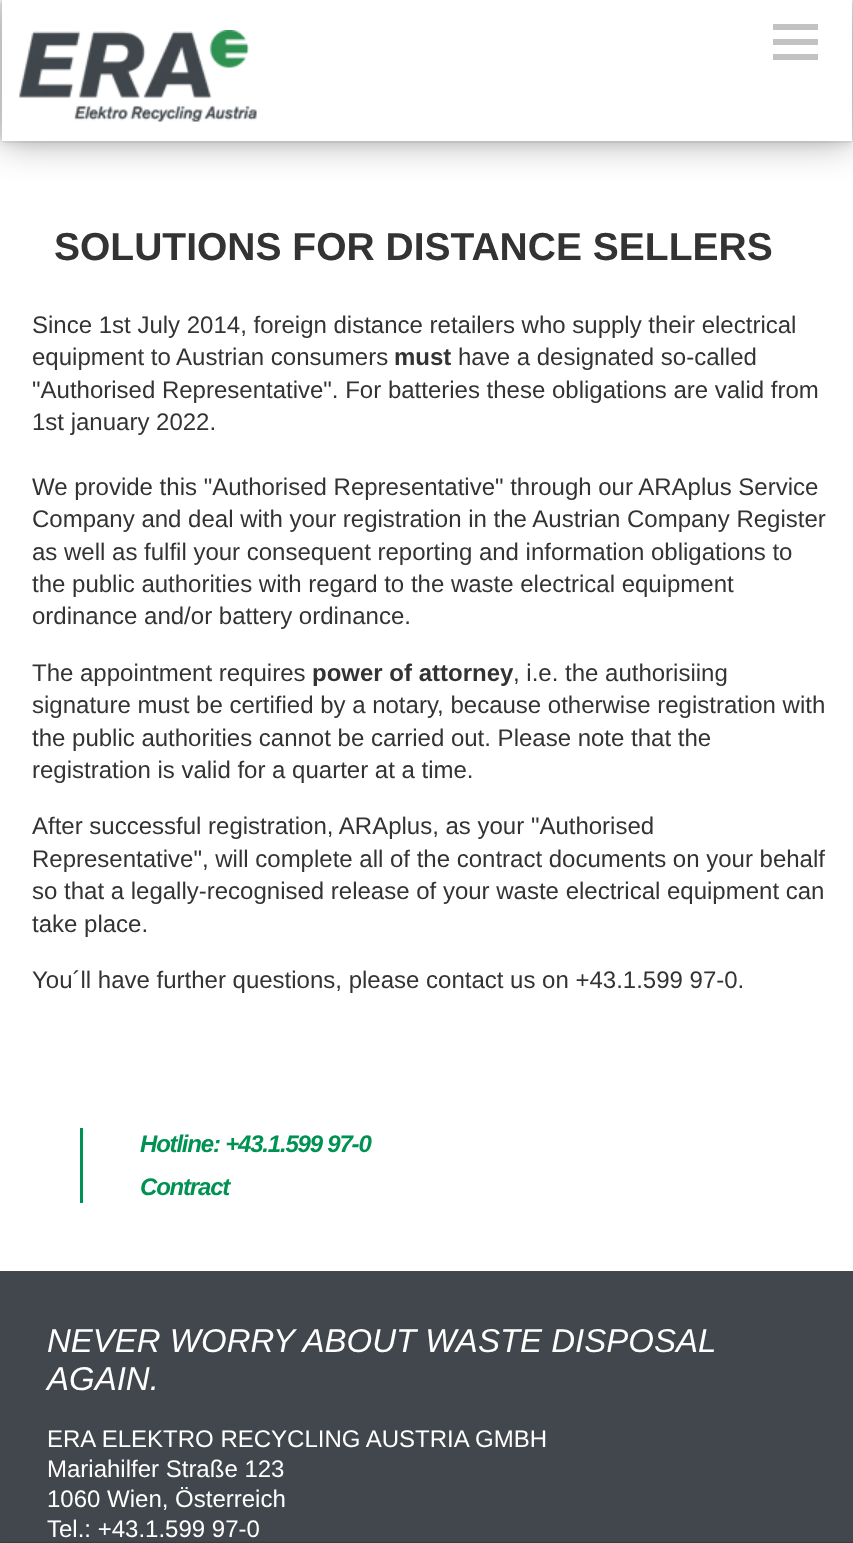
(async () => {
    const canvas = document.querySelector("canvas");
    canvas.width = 853;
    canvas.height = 1543;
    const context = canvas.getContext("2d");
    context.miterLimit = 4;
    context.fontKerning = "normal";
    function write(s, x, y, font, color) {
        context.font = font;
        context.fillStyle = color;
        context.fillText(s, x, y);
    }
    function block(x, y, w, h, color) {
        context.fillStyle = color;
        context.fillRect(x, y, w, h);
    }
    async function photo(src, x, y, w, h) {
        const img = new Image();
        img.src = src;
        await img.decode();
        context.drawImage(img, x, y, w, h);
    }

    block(0, 0, 853, 1543, "rgb(255, 255, 255)");
    context.fillStyle = "rgba(0, 0, 0, 0.07)";
    context.filter = "blur(4px)";
    context.beginPath();
    context.roundRect(0, 0, 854, 144, 6);
    context.fill();
    context.filter = "none";
    context.beginPath();
    context.roundRect(1, 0, 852, 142, 5);
    context.strokeStyle = "rgb(231, 231, 231)";
    context.lineWidth = 2;
    context.stroke();
    context.fillStyle = "rgba(0, 0, 0, 0.35)";
    context.filter = "blur(19px)";
    context.beginPath();
    context.rect(2, 0, 850, 141);
    context.fill();
    context.filter = "none";
    block(2, 0, 850, 141, "rgb(255, 255, 255)");
    await photo("media/1.png", 19, 30, 238, 92);
    block(773, 39, 45, 6, "rgb(194, 194, 194)");
    block(773, 24, 45, 6, "rgb(194, 194, 194)");
    block(773, 54, 45, 6, "rgb(194, 194, 194)");
    write("SOLUTIONS FOR DISTANCE SELLERS", 54, 260, "bold 39px Liberation Sans", "rgb(51, 51, 51)");
    write("Since 1st July 2014, foreign distance retailers who supply their electrical", 32, 333, "24px Liberation Sans", "rgb(51, 51, 51)");
    write("equipment to Austrian consumers", 32, 365, "24px Liberation Sans", "rgb(51, 51, 51)");
    write("must", 394, 365, "bold 24px Liberation Sans", "rgb(51, 51, 51)");
    write("have a designated so-called", 458, 365, "24px Liberation Sans", "rgb(51, 51, 51)");
    write("\"Authorised Representative\". For batteries these obligations are valid from", 32, 398, "24px Liberation Sans", "rgb(51, 51, 51)");
    write("1st january 2022.", 32, 430, "24px Liberation Sans", "rgb(51, 51, 51)");
    write("We provide this \"Authorised Representative\" through our ARAplus Service", 32, 495, "24px Liberation Sans", "rgb(51, 51, 51)");
    write("Company and deal with your registration in the Austrian Company Register", 32, 527, "24px Liberation Sans", "rgb(51, 51, 51)");
    write("as well as fulfil your consequent reporting and information obligations to", 32, 560, "24px Liberation Sans", "rgb(51, 51, 51)");
    write("the public authorities with regard to the waste electrical equipment", 32, 592, "24px Liberation Sans", "rgb(51, 51, 51)");
    write("ordinance and/or battery ordinance.", 32, 624, "24px Liberation Sans", "rgb(51, 51, 51)");
    write("The appointment requires", 32, 681, "24px Liberation Sans", "rgb(51, 51, 51)");
    write("power of attorney", 312, 681, "bold 24px Liberation Sans", "rgb(51, 51, 51)");
    write(", i.e. the authorisiing", 513, 681, "24px Liberation Sans", "rgb(51, 51, 51)");
    write("signature must be certified by a notary, because otherwise registration with", 32, 713, "24px Liberation Sans", "rgb(51, 51, 51)");
    write("the public authorities cannot be carried out. Please note that the", 32, 746, "24px Liberation Sans", "rgb(51, 51, 51)");
    write("registration is valid for a quarter at a time.", 32, 778, "24px Liberation Sans", "rgb(51, 51, 51)");
    write("After successful registration, ARAplus, as your \"Authorised", 32, 834, "24px Liberation Sans", "rgb(51, 51, 51)");
    write("Representative\", will complete all of the contract documents on your behalf", 32, 867, "24px Liberation Sans", "rgb(51, 51, 51)");
    write("so that a legally-recognised release of your waste electrical equipment can", 32, 899, "24px Liberation Sans", "rgb(51, 51, 51)");
    write("take place.", 32, 932, "24px Liberation Sans", "rgb(51, 51, 51)");
    write("You´ll have further questions, please contact us on +43.1.599 97-0.", 32, 988, "24px Liberation Sans", "rgb(51, 51, 51)");
    block(80, 1128, 3, 75, "rgb(0, 146, 82)");
    context.letterSpacing = "-1.2px";
    write("Hotline: +43.1.599 97-0", 140, 1152, "italic bold 24px Liberation Sans", "rgb(0, 146, 82)");
    write("Contract", 140, 1195, "italic bold 24px Liberation Sans", "rgb(0, 146, 82)");
    block(0, 1271, 853, 272, "rgb(65, 71, 76)");
    context.fillStyle = "rgb(0, 0, 0)";
    context.filter = "blur(1.5px)";
    context.beginPath();
    context.rect(0, 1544, 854, 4);
    context.fill();
    context.filter = "none";
    context.letterSpacing = "0px";
    write("NEVER WORRY ABOUT WASTE DISPOSAL", 47, 1352, "italic 33px Liberation Sans", "rgb(255, 255, 255)");
    write("AGAIN.", 47, 1390, "italic 33px Liberation Sans", "rgb(255, 255, 255)");
    write("ERA ELEKTRO RECYCLING AUSTRIA GMBH", 47, 1447, "24px Liberation Sans", "rgb(255, 255, 255)");
    write("Mariahilfer Straße 123", 47, 1477, "24px Liberation Sans", "rgb(255, 255, 255)");
    write("1060 Wien, Österreich", 47, 1507, "24px Liberation Sans", "rgb(255, 255, 255)");
    write("Tel.: +43.1.599 97-0", 47, 1537, "24px Liberation Sans", "rgb(255, 255, 255)");
})();
